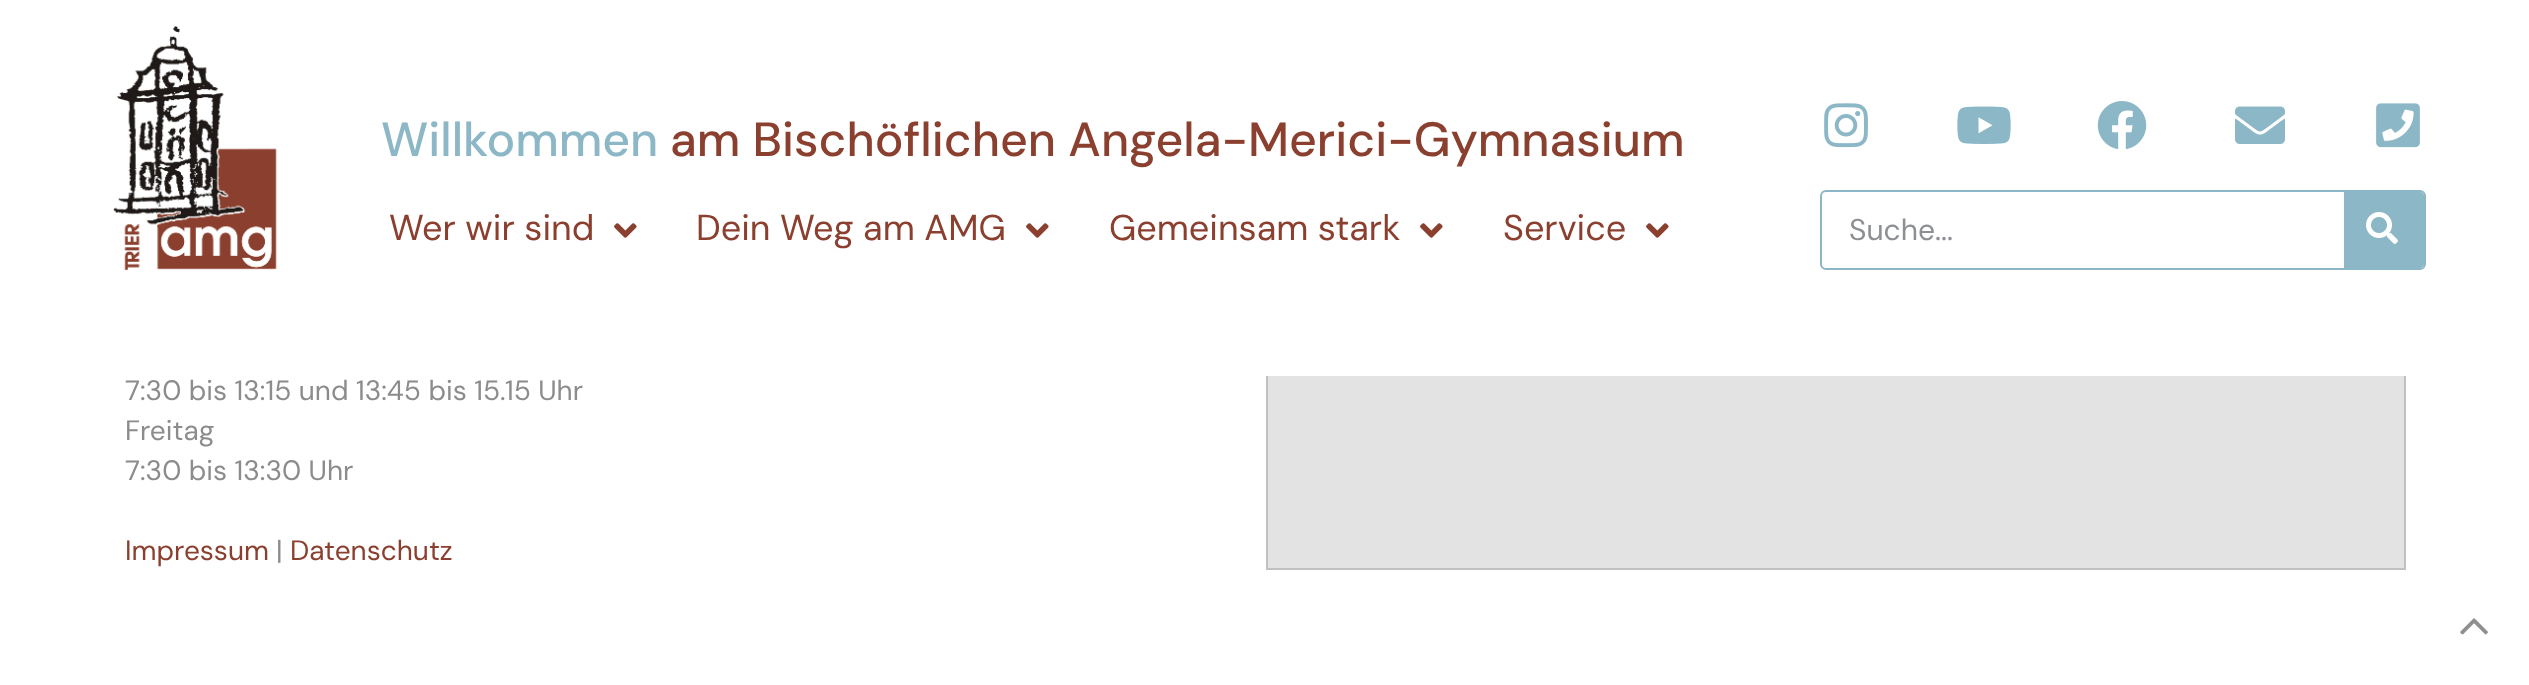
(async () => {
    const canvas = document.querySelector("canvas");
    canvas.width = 2529;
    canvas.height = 685;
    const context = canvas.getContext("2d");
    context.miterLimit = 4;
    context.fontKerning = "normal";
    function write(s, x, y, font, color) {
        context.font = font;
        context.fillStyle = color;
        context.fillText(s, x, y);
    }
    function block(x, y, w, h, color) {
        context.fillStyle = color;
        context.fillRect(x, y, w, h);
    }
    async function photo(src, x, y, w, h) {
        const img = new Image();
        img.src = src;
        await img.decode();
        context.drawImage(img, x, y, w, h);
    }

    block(0, 0, 2529, 685, "rgb(255, 255, 255)");
    await photo("media/1.png", 113, 25, 164, 245);
    write("Willkommen", 381, 156, "500 48px DM Sans", "rgb(140, 183, 199)");
    write("am Bischöflichen Angela-Merici-Gymnasium", 670, 156, "500 48px DM Sans", "rgb(139, 63, 46)");
    write("Wer wir sind", 389, 240, "36px DM Sans", "rgb(139, 63, 46)");
    await photo("media/2.png", 614, 223, 23, 15);
    write("Dein Weg am AMG", 696, 240, "36px DM Sans", "rgb(139, 63, 46)");
    await photo("media/2.png", 1026, 223, 23, 15);
    write("Gemeinsam stark", 1109, 240, "36px DM Sans", "rgb(139, 63, 46)");
    await photo("media/2.png", 1420, 223, 23, 15);
    write("Service", 1503, 240, "36px DM Sans", "rgb(139, 63, 46)");
    await photo("media/2.png", 1646, 223, 23, 15);
    await photo("media/3.png", 1824, 103, 44, 45);
    await photo("media/4.png", 1957, 106, 54, 38);
    await photo("media/5.png", 2097, 101, 50, 49);
    await photo("media/6.png", 2235, 106, 50, 38);
    await photo("media/7.png", 2376, 103, 44, 45);
    context.beginPath();
    context.roundRect(1821, 191, 604, 78, 5);
    context.strokeStyle = "rgb(140, 183, 199)";
    context.lineWidth = 2;
    context.stroke();
    write("Suche...", 1849, 240, "30px DM Sans", "rgb(140, 143, 147)");
    context.fillStyle = "rgb(140, 183, 199)";
    context.beginPath();
    context.roundRect(2344, 192, 80, 76, [0, 4, 4, 0]);
    context.fill();
    await photo("media/8.png", 2366, 212, 32, 32);
    write("7:30 bis 13:15 und 13:45 bis 15.15 Uhr", 125, 400, "28px DM Sans", "rgb(140, 140, 140)");
    write("Freitag", 125, 440, "28px DM Sans", "rgb(140, 140, 140)");
    write("7:30 bis 13:30 Uhr", 125, 480, "28px DM Sans", "rgb(140, 140, 140)");
    write("Impressum", 125, 560, "28px DM Sans", "rgb(139, 63, 46)");
    write("|", 276, 560, "28px DM Sans", "rgb(140, 140, 140)");
    write("Datenschutz", 290, 560, "28px DM Sans", "rgb(139, 63, 46)");
    await photo("media/9.png", 1266, 376, 1140, 194);
    await photo("media/10.png", 2460, 618, 28, 17);
})();
